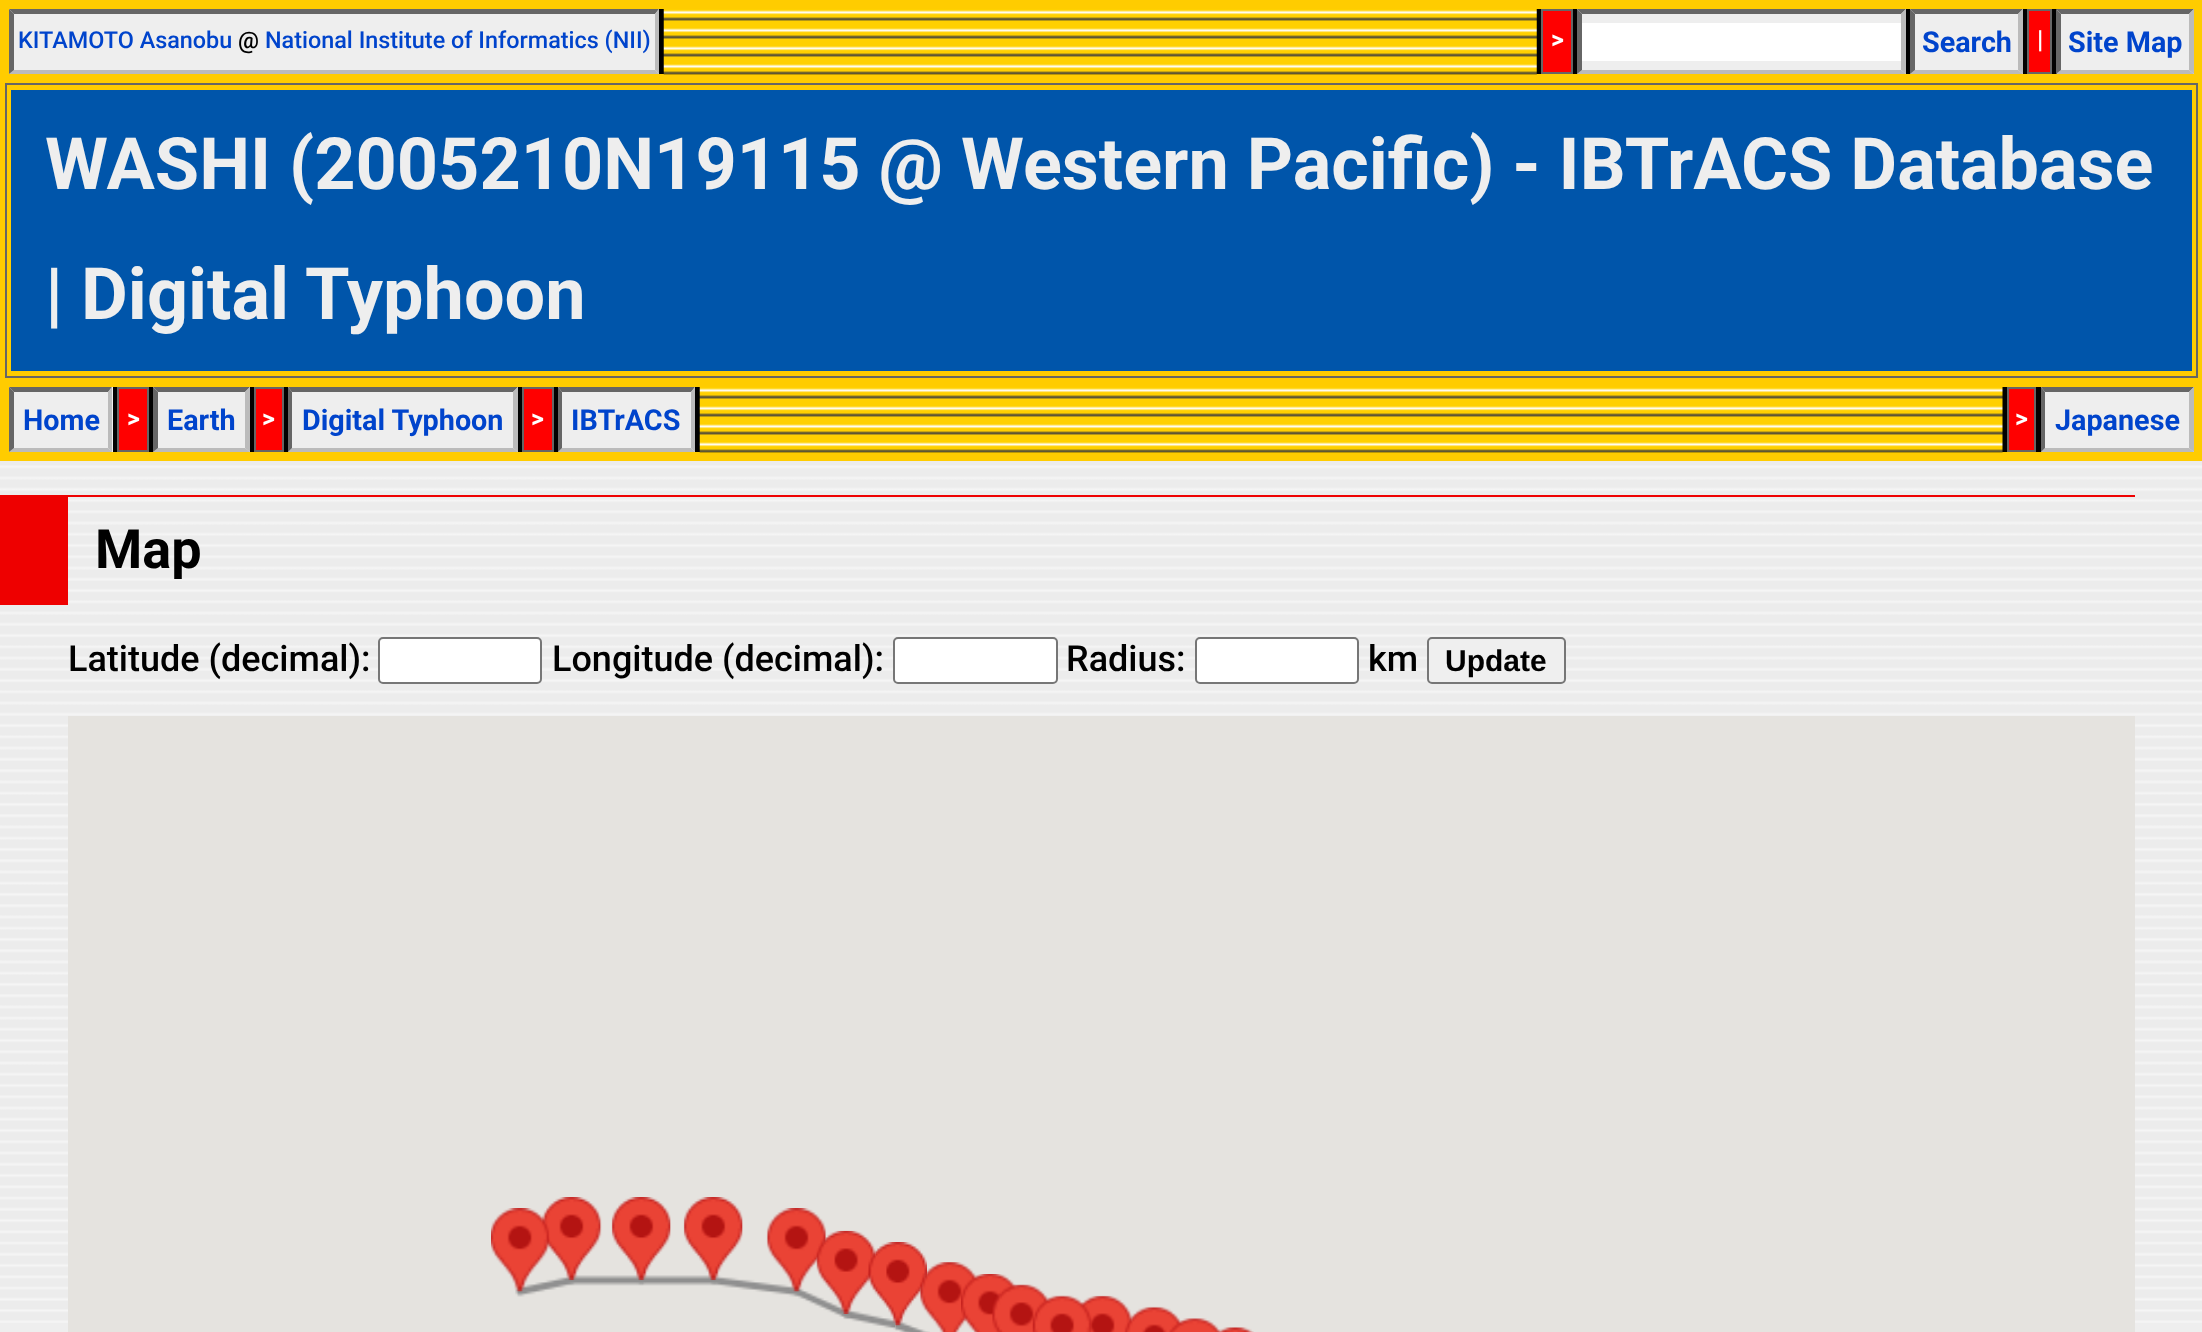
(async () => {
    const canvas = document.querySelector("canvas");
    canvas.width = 2202;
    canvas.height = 1332;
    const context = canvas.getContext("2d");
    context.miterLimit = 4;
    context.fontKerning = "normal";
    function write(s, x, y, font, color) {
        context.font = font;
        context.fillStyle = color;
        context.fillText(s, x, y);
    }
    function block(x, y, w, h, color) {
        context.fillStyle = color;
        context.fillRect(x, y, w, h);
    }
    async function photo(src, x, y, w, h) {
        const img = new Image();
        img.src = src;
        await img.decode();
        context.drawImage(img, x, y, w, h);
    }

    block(0, 0, 2202, 1332, "rgb(238, 238, 238)");
    await photo("media/1.png", 0, 461, 2202, 862);
    block(0, 0, 2202, 461, "rgb(255, 204, 0)");
    block(659, 9, 1398, 65, "rgb(0, 0, 0)");
    block(9, 9, 650, 65, "rgb(238, 238, 238)");
    context.fillStyle = "rgb(102, 102, 102)";
    context.beginPath();
    context.moveTo(9, 9);
    context.lineTo(659, 9);
    context.lineTo(655, 14);
    context.lineTo(14, 14);
    context.closePath();
    context.fill();
    context.fillStyle = "rgb(187, 187, 187)";
    context.beginPath();
    context.moveTo(659, 9);
    context.lineTo(659, 74);
    context.lineTo(655, 70);
    context.lineTo(655, 14);
    context.closePath();
    context.fill();
    context.beginPath();
    context.moveTo(659, 74);
    context.lineTo(9, 74);
    context.lineTo(14, 70);
    context.lineTo(655, 70);
    context.closePath();
    context.fill();
    context.fillStyle = "rgb(102, 102, 102)";
    context.beginPath();
    context.moveTo(9, 74);
    context.lineTo(9, 9);
    context.lineTo(14, 14);
    context.lineTo(14, 70);
    context.closePath();
    context.fill();
    write("KITAMOTO Asanobu", 18, 48, "500 23.4px Roboto", "rgb(0, 68, 204)");
    write("@", 238, 48, "500 23.4px Roboto", "rgb(0, 0, 0)");
    write("National Institute of Informatics (NII)", 265, 48, "500 23.4px Roboto", "rgb(0, 68, 204)");
    await photo("media/2.png", 663, 9, 874, 66);
    context.fillStyle = "rgb(255, 0, 0)";
    context.beginPath();
    context.rect(1542, 10, 30, 63);
    context.fill();
    context.strokeStyle = "rgb(102, 102, 102)";
    context.lineWidth = 2;
    context.stroke();
    write(">", 1551, 48, "bold 25px Roboto", "rgb(255, 255, 255)");
    block(1577, 9, 329, 65, "rgb(238, 238, 238)");
    context.fillStyle = "rgb(102, 102, 102)";
    context.beginPath();
    context.moveTo(1577, 9);
    context.lineTo(1906, 9);
    context.lineTo(1901, 14);
    context.lineTo(1582, 14);
    context.closePath();
    context.fill();
    context.fillStyle = "rgb(187, 187, 187)";
    context.beginPath();
    context.moveTo(1906, 9);
    context.lineTo(1906, 74);
    context.lineTo(1901, 70);
    context.lineTo(1901, 14);
    context.closePath();
    context.fill();
    context.beginPath();
    context.moveTo(1906, 74);
    context.lineTo(1577, 74);
    context.lineTo(1582, 70);
    context.lineTo(1901, 70);
    context.closePath();
    context.fill();
    context.fillStyle = "rgb(102, 102, 102)";
    context.beginPath();
    context.moveTo(1577, 74);
    context.lineTo(1577, 9);
    context.lineTo(1582, 14);
    context.lineTo(1582, 70);
    context.closePath();
    context.fill();
    block(1582, 23, 319, 38, "rgb(255, 255, 255)");
    block(1910, 9, 113, 65, "rgb(238, 238, 238)");
    context.fillStyle = "rgb(102, 102, 102)";
    context.beginPath();
    context.moveTo(1910, 9);
    context.lineTo(2023, 9);
    context.lineTo(2018, 14);
    context.lineTo(1915, 14);
    context.closePath();
    context.fill();
    context.fillStyle = "rgb(187, 187, 187)";
    context.beginPath();
    context.moveTo(2023, 9);
    context.lineTo(2023, 74);
    context.lineTo(2018, 70);
    context.lineTo(2018, 14);
    context.closePath();
    context.fill();
    context.beginPath();
    context.moveTo(2023, 74);
    context.lineTo(1910, 74);
    context.lineTo(1915, 70);
    context.lineTo(2018, 70);
    context.closePath();
    context.fill();
    context.fillStyle = "rgb(102, 102, 102)";
    context.beginPath();
    context.moveTo(1910, 74);
    context.lineTo(1910, 9);
    context.lineTo(1915, 14);
    context.lineTo(1915, 70);
    context.closePath();
    context.fill();
    write("Search", 1922, 52, "bold 28.75px Roboto", "rgb(0, 68, 204)");
    context.fillStyle = "rgb(255, 0, 0)";
    context.beginPath();
    context.rect(2028, 10, 23, 63);
    context.fill();
    context.stroke();
    write("|", 2037, 48, "bold 25px Roboto", "rgb(255, 255, 255)");
    block(2057, 9, 137, 65, "rgb(238, 238, 238)");
    context.fillStyle = "rgb(102, 102, 102)";
    context.beginPath();
    context.moveTo(2056, 9);
    context.lineTo(2194, 9);
    context.lineTo(2189, 14);
    context.lineTo(2061, 14);
    context.closePath();
    context.fill();
    context.fillStyle = "rgb(187, 187, 187)";
    context.beginPath();
    context.moveTo(2194, 9);
    context.lineTo(2194, 74);
    context.lineTo(2189, 70);
    context.lineTo(2189, 14);
    context.closePath();
    context.fill();
    context.beginPath();
    context.moveTo(2194, 74);
    context.lineTo(2056, 74);
    context.lineTo(2061, 70);
    context.lineTo(2189, 70);
    context.closePath();
    context.fill();
    context.fillStyle = "rgb(102, 102, 102)";
    context.beginPath();
    context.moveTo(2056, 74);
    context.lineTo(2056, 9);
    context.lineTo(2061, 14);
    context.lineTo(2061, 70);
    context.closePath();
    context.fill();
    write("Site Map", 2068, 52, "bold 28.75px Roboto", "rgb(0, 68, 204)");
    context.strokeRect(6, 84, 2191, 293);
    block(11, 90, 2181, 281, "rgb(0, 85, 170)");
    write("WASHI (2005210N19115 @ Western Pacific) - IBTrACS Database", 45, 189, "bold 72px Roboto", "rgb(238, 238, 238)");
    write("| Digital Typhoon", 45, 319, "bold 72px Roboto", "rgb(238, 238, 238)");
    block(113, 387, 1928, 65, "rgb(0, 0, 0)");
    block(9, 387, 104, 65, "rgb(238, 238, 238)");
    context.fillStyle = "rgb(102, 102, 102)";
    context.beginPath();
    context.moveTo(9, 387);
    context.lineTo(112, 387);
    context.lineTo(108, 392);
    context.lineTo(14, 392);
    context.closePath();
    context.fill();
    context.fillStyle = "rgb(187, 187, 187)";
    context.beginPath();
    context.moveTo(112, 387);
    context.lineTo(112, 452);
    context.lineTo(108, 448);
    context.lineTo(108, 392);
    context.closePath();
    context.fill();
    context.beginPath();
    context.moveTo(112, 452);
    context.lineTo(9, 452);
    context.lineTo(14, 448);
    context.lineTo(108, 448);
    context.closePath();
    context.fill();
    context.fillStyle = "rgb(102, 102, 102)";
    context.beginPath();
    context.moveTo(9, 452);
    context.lineTo(9, 387);
    context.lineTo(14, 392);
    context.lineTo(14, 448);
    context.closePath();
    context.fill();
    write("Home", 23, 430, "bold 28.75px Roboto", "rgb(0, 68, 204)");
    context.fillStyle = "rgb(255, 0, 0)";
    context.beginPath();
    context.rect(118, 388, 30, 63);
    context.fill();
    context.stroke();
    write(">", 127, 427, "bold 25px Roboto", "rgb(255, 255, 255)");
    block(153, 387, 97, 65, "rgb(238, 238, 238)");
    context.fillStyle = "rgb(102, 102, 102)";
    context.beginPath();
    context.moveTo(153, 387);
    context.lineTo(250, 387);
    context.lineTo(245, 392);
    context.lineTo(158, 392);
    context.closePath();
    context.fill();
    context.fillStyle = "rgb(187, 187, 187)";
    context.beginPath();
    context.moveTo(250, 387);
    context.lineTo(250, 452);
    context.lineTo(245, 448);
    context.lineTo(245, 392);
    context.closePath();
    context.fill();
    context.beginPath();
    context.moveTo(250, 452);
    context.lineTo(153, 452);
    context.lineTo(158, 448);
    context.lineTo(245, 448);
    context.closePath();
    context.fill();
    context.fillStyle = "rgb(102, 102, 102)";
    context.beginPath();
    context.moveTo(153, 452);
    context.lineTo(153, 387);
    context.lineTo(158, 392);
    context.lineTo(158, 448);
    context.closePath();
    context.fill();
    write("Earth", 167, 430, "bold 28.75px Roboto", "rgb(0, 68, 204)");
    context.fillStyle = "rgb(255, 0, 0)";
    context.beginPath();
    context.rect(255, 388, 28, 63);
    context.fill();
    context.stroke();
    write(">", 262, 427, "bold 25px Roboto", "rgb(255, 255, 255)");
    block(288, 387, 230, 65, "rgb(238, 238, 238)");
    context.fillStyle = "rgb(102, 102, 102)";
    context.beginPath();
    context.moveTo(288, 387);
    context.lineTo(518, 387);
    context.lineTo(513, 392);
    context.lineTo(292, 392);
    context.closePath();
    context.fill();
    context.fillStyle = "rgb(187, 187, 187)";
    context.beginPath();
    context.moveTo(518, 387);
    context.lineTo(518, 452);
    context.lineTo(513, 448);
    context.lineTo(513, 392);
    context.closePath();
    context.fill();
    context.beginPath();
    context.moveTo(518, 452);
    context.lineTo(288, 452);
    context.lineTo(292, 448);
    context.lineTo(513, 448);
    context.closePath();
    context.fill();
    context.fillStyle = "rgb(102, 102, 102)";
    context.beginPath();
    context.moveTo(288, 452);
    context.lineTo(288, 387);
    context.lineTo(292, 392);
    context.lineTo(292, 448);
    context.closePath();
    context.fill();
    write("Digital Typhoon", 302, 430, "bold 28.75px Roboto", "rgb(0, 68, 204)");
    context.fillStyle = "rgb(255, 0, 0)";
    context.beginPath();
    context.rect(523, 388, 30, 63);
    context.fill();
    context.stroke();
    write(">", 531, 427, "bold 25px Roboto", "rgb(255, 255, 255)");
    block(558, 387, 137, 65, "rgb(238, 238, 238)");
    context.fillStyle = "rgb(102, 102, 102)";
    context.beginPath();
    context.moveTo(558, 387);
    context.lineTo(695, 387);
    context.lineTo(691, 392);
    context.lineTo(562, 392);
    context.closePath();
    context.fill();
    context.fillStyle = "rgb(187, 187, 187)";
    context.beginPath();
    context.moveTo(695, 387);
    context.lineTo(695, 452);
    context.lineTo(691, 448);
    context.lineTo(691, 392);
    context.closePath();
    context.fill();
    context.beginPath();
    context.moveTo(695, 452);
    context.lineTo(558, 452);
    context.lineTo(562, 448);
    context.lineTo(691, 448);
    context.closePath();
    context.fill();
    context.fillStyle = "rgb(102, 102, 102)";
    context.beginPath();
    context.moveTo(558, 452);
    context.lineTo(558, 387);
    context.lineTo(562, 392);
    context.lineTo(562, 448);
    context.closePath();
    context.fill();
    write("IBTrACS", 571, 430, "bold 28.75px Roboto", "rgb(0, 68, 204)");
    await photo("media/3.png", 699, 387, 1304, 66);
    context.fillStyle = "rgb(255, 0, 0)";
    context.beginPath();
    context.rect(2008, 388, 27, 63);
    context.fill();
    context.stroke();
    write(">", 2015, 427, "bold 25px Roboto", "rgb(255, 255, 255)");
    block(2041, 387, 153, 65, "rgb(238, 238, 238)");
    context.fillStyle = "rgb(102, 102, 102)";
    context.beginPath();
    context.moveTo(2041, 387);
    context.lineTo(2194, 387);
    context.lineTo(2189, 392);
    context.lineTo(2045, 392);
    context.closePath();
    context.fill();
    context.fillStyle = "rgb(187, 187, 187)";
    context.beginPath();
    context.moveTo(2194, 387);
    context.lineTo(2194, 452);
    context.lineTo(2189, 448);
    context.lineTo(2189, 392);
    context.closePath();
    context.fill();
    context.beginPath();
    context.moveTo(2194, 452);
    context.lineTo(2041, 452);
    context.lineTo(2045, 448);
    context.lineTo(2189, 448);
    context.closePath();
    context.fill();
    context.fillStyle = "rgb(102, 102, 102)";
    context.beginPath();
    context.moveTo(2041, 452);
    context.lineTo(2041, 387);
    context.lineTo(2045, 392);
    context.lineTo(2045, 448);
    context.closePath();
    context.fill();
    write("Japanese", 2055, 430, "bold 28.75px Roboto", "rgb(0, 68, 204)");
    block(68, 495, 2067, 2, "rgb(238, 0, 0)");
    block(0, 495, 68, 110, "rgb(238, 0, 0)");
    write("Map", 95, 568, "bold 54px Roboto", "rgb(0, 0, 0)");
    write("Latitude (decimal):", 68, 671, "500 36px Roboto", "rgb(0, 0, 0)");
    context.fillStyle = "rgb(255, 255, 255)";
    context.beginPath();
    context.roundRect(379, 638, 162, 45, 4);
    context.fill();
    context.strokeStyle = "rgb(118, 118, 118)";
    context.stroke();
    write("Longitude (decimal):", 552, 671, "500 36px Roboto", "rgb(0, 0, 0)");
    context.fillStyle = "rgb(255, 255, 255)";
    context.beginPath();
    context.roundRect(894, 638, 163, 45, 4);
    context.fill();
    context.stroke();
    write("Radius:", 1066, 671, "500 36px Roboto", "rgb(0, 0, 0)");
    context.fillStyle = "rgb(255, 255, 255)";
    context.beginPath();
    context.roundRect(1196, 638, 162, 45, 4);
    context.fill();
    context.stroke();
    write("km", 1368, 671, "500 36px Roboto", "rgb(0, 0, 0)");
    context.fillStyle = "rgb(239, 239, 239)";
    context.beginPath();
    context.roundRect(1428, 638, 137, 45, 4);
    context.fill();
    context.stroke();
    write("Update", 1445, 671, "bold 30px Liberation Sans", "rgb(0, 0, 0)");
    block(68, 716, 2067, 616, "rgb(229, 227, 223)");
    await photo("media/20.png", 895, 1320, 35, 12);
    await photo("media/19.png", 515, 1275, 381, 55);
    await photo("media/5.png", 542, 1197, 60, 84);
    await photo("media/4.png", 491, 1208, 59, 84);
    await photo("media/6.png", 611, 1197, 60, 84);
    await photo("media/7.png", 683, 1197, 60, 84);
    await photo("media/8.png", 766, 1208, 61, 84);
    await photo("media/9.png", 816, 1230, 60, 84);
    await photo("media/10.png", 868, 1242, 59, 84);
    await photo("media/11.png", 919, 1262, 59, 70);
    await photo("media/12.png", 961, 1274, 57, 58);
    await photo("media/13.png", 992, 1284, 58, 48);
    await photo("media/15.png", 1079, 1295, 54, 37);
    await photo("media/14.png", 1032, 1295, 60, 37);
    await photo("media/16.png", 1124, 1306, 59, 26);
    await photo("media/17.png", 1169, 1318, 53, 14);
    await photo("media/18.png", 1217, 1327, 37, 5);
})();
